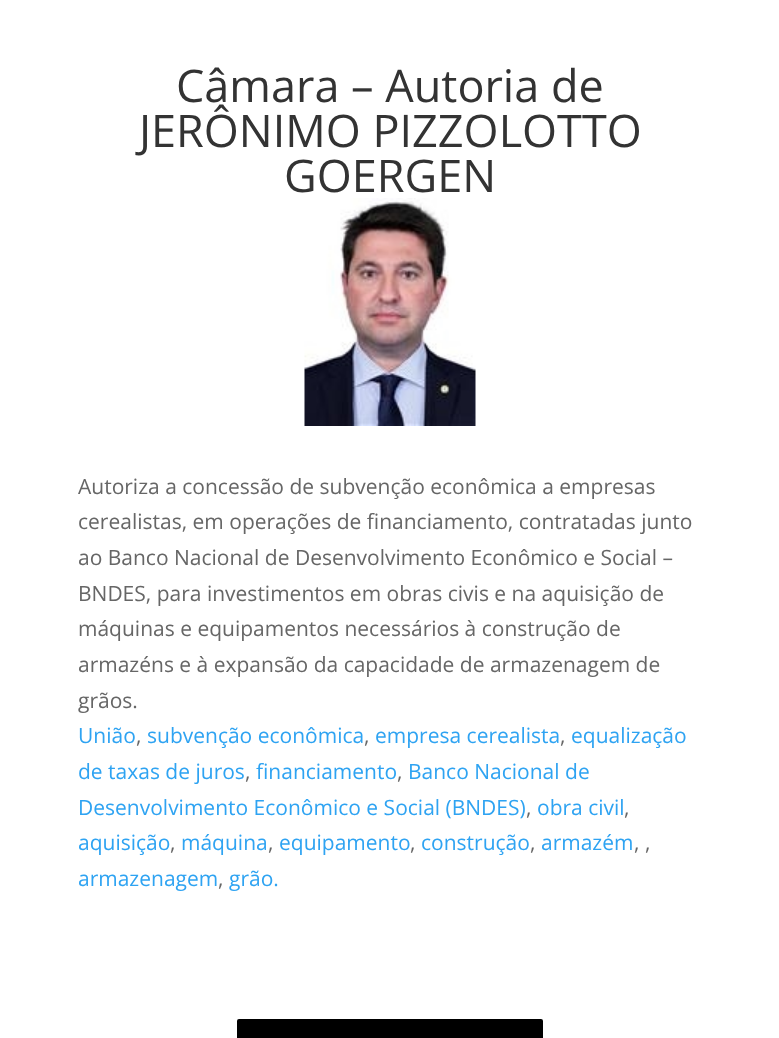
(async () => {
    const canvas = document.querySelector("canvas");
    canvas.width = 779;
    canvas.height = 1038;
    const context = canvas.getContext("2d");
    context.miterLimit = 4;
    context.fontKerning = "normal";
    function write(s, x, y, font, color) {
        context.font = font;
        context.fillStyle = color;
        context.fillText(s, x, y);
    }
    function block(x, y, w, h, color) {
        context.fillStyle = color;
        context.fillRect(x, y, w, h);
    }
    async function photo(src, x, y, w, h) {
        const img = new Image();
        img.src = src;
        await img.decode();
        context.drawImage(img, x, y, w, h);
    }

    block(0, 0, 779, 1038, "rgb(255, 255, 255)");
    write("Câmara – Autoria de", 176, 102, "45px Open Sans", "rgb(51, 51, 51)");
    write("JERÔNIMO PIZZOLOTTO", 139, 147, "45px Open Sans", "rgb(51, 51, 51)");
    write("GOERGEN", 284, 192, "45px Open Sans", "rgb(51, 51, 51)");
    await photo("media/1.png", 304, 198, 172, 228);
    write("Autoriza a concessão de subvenção econômica a empresas", 78, 494, "21px Open Sans", "rgb(102, 102, 102)");
    write("cerealistas, em operações de financiamento, contratadas junto", 78, 529, "21px Open Sans", "rgb(102, 102, 102)");
    write("ao Banco Nacional de Desenvolvimento Econômico e Social –", 78, 565, "21px Open Sans", "rgb(102, 102, 102)");
    write("BNDES, para investimentos em obras civis e na aquisição de", 78, 601, "21px Open Sans", "rgb(102, 102, 102)");
    write("máquinas e equipamentos necessários à construção de", 78, 636, "21px Open Sans", "rgb(102, 102, 102)");
    write("armazéns e à expansão da capacidade de armazenagem de", 78, 672, "21px Open Sans", "rgb(102, 102, 102)");
    write("grãos.", 78, 708, "21px Open Sans", "rgb(102, 102, 102)");
    write("União", 78, 743, "21px Open Sans", "rgb(46, 163, 242)");
    write(",", 136, 743, "21px Open Sans", "rgb(102, 102, 102)");
    write("subvenção econômica", 147, 743, "21px Open Sans", "rgb(46, 163, 242)");
    write(",", 364, 743, "21px Open Sans", "rgb(102, 102, 102)");
    write("empresa cerealista", 375, 743, "21px Open Sans", "rgb(46, 163, 242)");
    write(",", 560, 743, "21px Open Sans", "rgb(102, 102, 102)");
    write("equalização", 571, 743, "21px Open Sans", "rgb(46, 163, 242)");
    write("de taxas de juros", 78, 779, "21px Open Sans", "rgb(46, 163, 242)");
    write(",", 245, 779, "21px Open Sans", "rgb(102, 102, 102)");
    write("financiamento", 256, 779, "21px Open Sans", "rgb(46, 163, 242)");
    write(",", 397, 779, "21px Open Sans", "rgb(102, 102, 102)");
    write("Banco Nacional de", 408, 779, "21px Open Sans", "rgb(46, 163, 242)");
    write("Desenvolvimento Econômico e Social (BNDES)", 78, 815, "21px Open Sans", "rgb(46, 163, 242)");
    write(",", 526, 815, "21px Open Sans", "rgb(102, 102, 102)");
    write("obra civil", 537, 815, "21px Open Sans", "rgb(46, 163, 242)");
    write(",", 624, 815, "21px Open Sans", "rgb(102, 102, 102)");
    write("aquisição", 78, 850, "21px Open Sans", "rgb(46, 163, 242)");
    write(",", 170, 850, "21px Open Sans", "rgb(102, 102, 102)");
    write("máquina", 181, 850, "21px Open Sans", "rgb(46, 163, 242)");
    write(",", 268, 850, "21px Open Sans", "rgb(102, 102, 102)");
    write("equipamento", 279, 850, "21px Open Sans", "rgb(46, 163, 242)");
    write(",", 410, 850, "21px Open Sans", "rgb(102, 102, 102)");
    write("construção", 421, 850, "21px Open Sans", "rgb(46, 163, 242)");
    write(",", 530, 850, "21px Open Sans", "rgb(102, 102, 102)");
    write("armazém", 541, 850, "21px Open Sans", "rgb(46, 163, 242)");
    write(", ,", 634, 850, "21px Open Sans", "rgb(102, 102, 102)");
    write("armazenagem", 78, 886, "21px Open Sans", "rgb(46, 163, 242)");
    write(",", 218, 886, "21px Open Sans", "rgb(102, 102, 102)");
    write("grão.", 229, 886, "21px Open Sans", "rgb(46, 163, 242)");
    context.fillStyle = "rgb(0, 0, 0)";
    context.beginPath();
    context.roundRect(235.5, 1017.5, 309, 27, 3.5);
    context.fill();
    context.strokeStyle = "rgb(255, 255, 255)";
    context.lineWidth = 3;
    context.stroke();
})();
